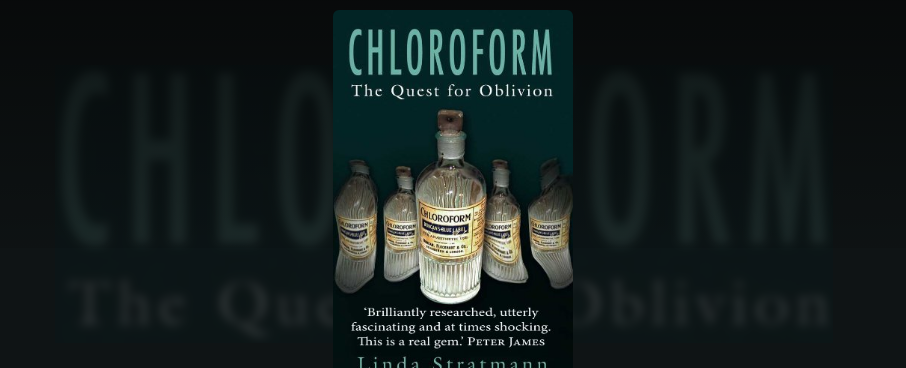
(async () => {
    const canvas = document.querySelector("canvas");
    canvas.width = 906;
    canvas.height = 368;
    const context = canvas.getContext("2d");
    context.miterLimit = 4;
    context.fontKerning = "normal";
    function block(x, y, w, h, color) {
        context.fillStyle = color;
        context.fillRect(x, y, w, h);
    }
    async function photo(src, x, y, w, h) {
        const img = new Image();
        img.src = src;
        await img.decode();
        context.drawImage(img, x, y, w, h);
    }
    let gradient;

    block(0, 0, 906, 368, "rgb(15, 20, 21)");
    await photo("media/2.png", 55, 65, 778, 278);
    gradient = context.createLinearGradient(453, 0, 453, 300);
    gradient.addColorStop(0, "rgba(0, 0, 0, 0.5)");
    gradient.addColorStop(1, "rgba(0, 0, 0, 0)");
    context.fillStyle = gradient;
    context.fillRect(0, 0, 906, 248);
    await photo("media/1.png", 333, 10, 240, 358);
})();
